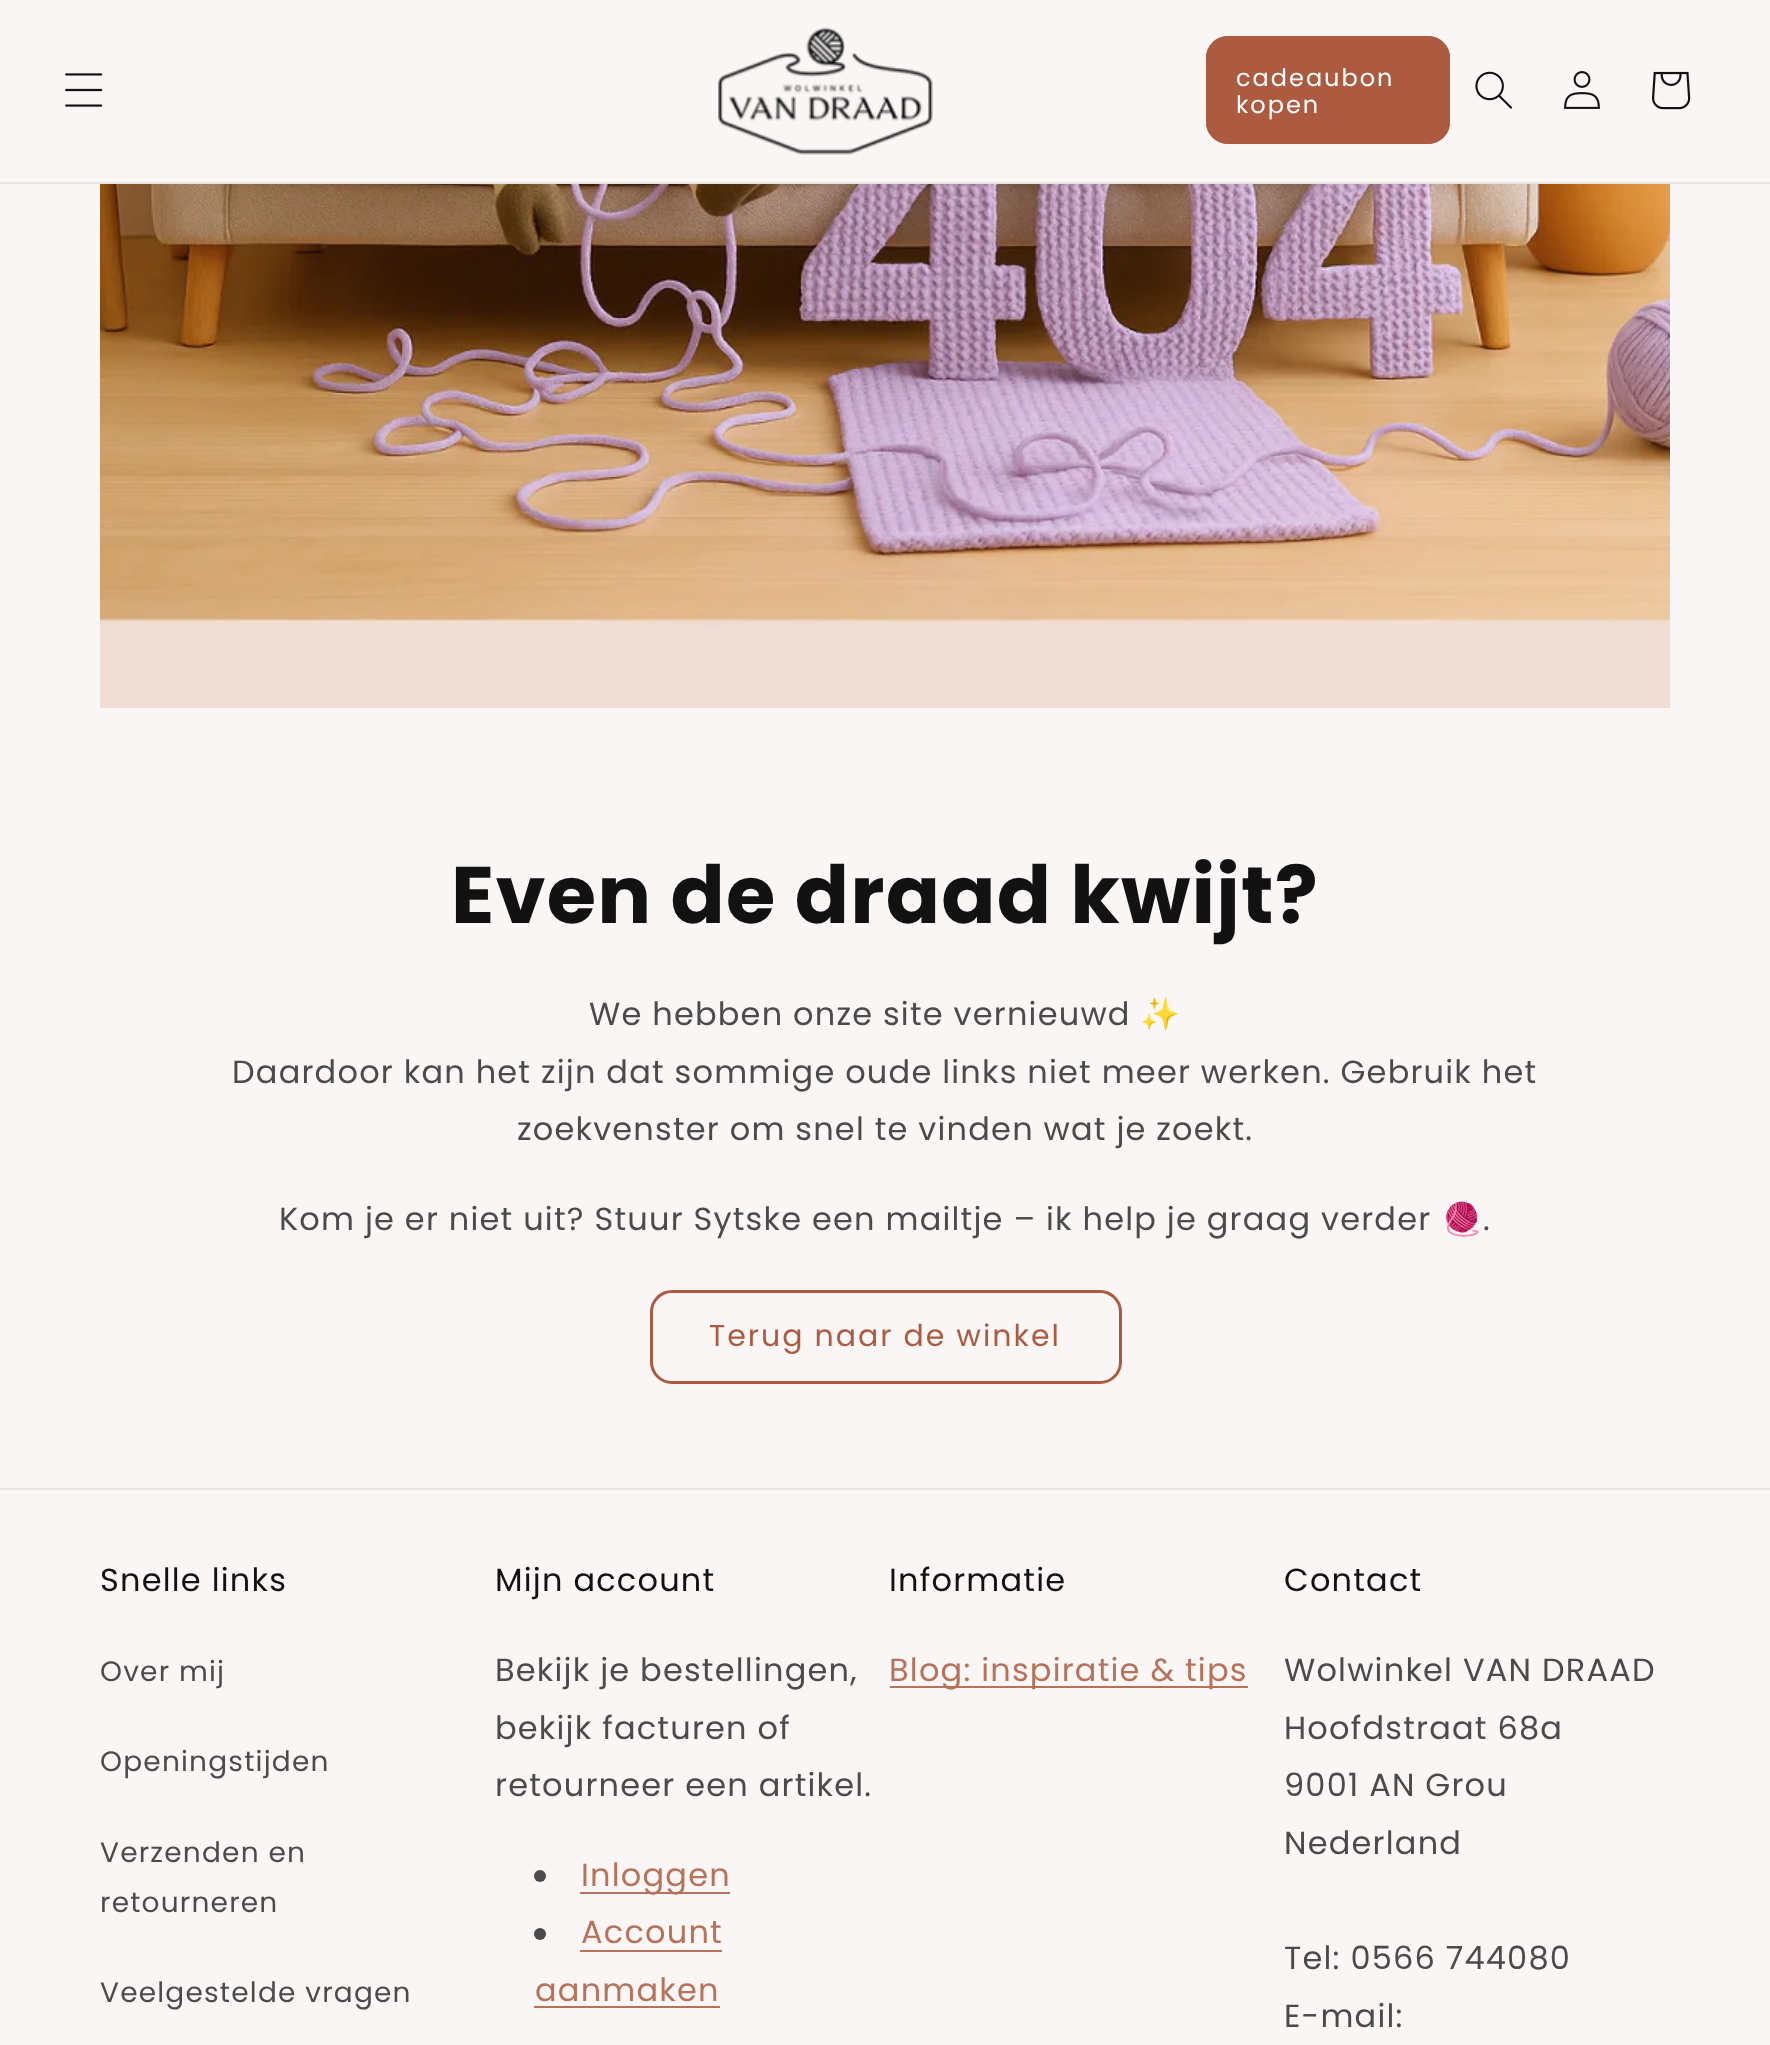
(async () => {
    const canvas = document.querySelector("canvas");
    canvas.width = 1770;
    canvas.height = 2045;
    const context = canvas.getContext("2d");
    context.miterLimit = 4;
    context.fontKerning = "normal";
    function write(s, x, y, font, color) {
        context.font = font;
        context.fillStyle = color;
        context.fillText(s, x, y);
    }
    function block(x, y, w, h, color) {
        context.fillStyle = color;
        context.fillRect(x, y, w, h);
    }
    function card(x, y, w, h, r, color) {
        context.fillStyle = color;
        context.beginPath();
        context.roundRect(x, y, w, h, r);
        context.fill();
    }
    async function photo(src, x, y, w, h) {
        const img = new Image();
        img.src = src;
        await img.decode();
        context.drawImage(img, x, y, w, h);
    }

    block(0, 0, 1770, 2045, "rgb(249, 246, 245)");
    block(0, 182, 1770, 2, "rgb(231, 228, 227)");
    await photo("media/1.png", 65, 73, 38, 34);
    await photo("media/2.png", 718, 27, 215, 128);
    card(1206, 36, 244, 108, 22, "rgb(172, 91, 64)");
    context.beginPath();
    context.roundRect(1207, 37, 242, 106, 21);
    context.strokeStyle = "rgb(172, 91, 64)";
    context.lineWidth = 2;
    context.stroke();
    context.letterSpacing = "2px";
    write("cadeaubon", 1236, 86, "24px Poppins", "rgb(255, 255, 255)");
    write("kopen", 1236, 113, "24px Poppins", "rgb(255, 255, 255)");
    await photo("media/3.png", 1475, 71, 37, 38);
    await photo("media/4.png", 1564, 71, 36, 38);
    await photo("media/5.png", 1652, 71, 39, 39);
    await photo("media/6.png", 100, 184, 1570, 524);
    context.letterSpacing = "1.2px";
    write("Even de draad kwijt?", 451, 923, "bold 80px Poppins", "rgb(18, 18, 18)");
    write("We hebben onze site vernieuwd", 589, 1025, "32px Poppins", "rgb(76, 75, 75)");
    write("✨", 1140, 1025, "32px Noto Color Emoji", "rgb(76, 75, 75)");
    write("Daardoor kan het zijn dat sommige oude links niet meer werken. Gebruik het", 232, 1083, "32px Poppins", "rgb(76, 75, 75)");
    write("zoekvenster om snel te vinden wat je zoekt.", 517, 1140, "32px Poppins", "rgb(76, 75, 75)");
    write("Kom je er niet uit? Stuur Sytske een mailtje – ik help je graag verder", 279, 1230, "32px Poppins", "rgb(76, 75, 75)");
    write("🧶", 1442, 1230, "32px Noto Color Emoji", "rgb(76, 75, 75)");
    write(".", 1483, 1230, "32px Poppins", "rgb(76, 75, 75)");
    context.beginPath();
    context.roundRect(651.5, 1291.5, 469, 91, 20.5);
    context.lineWidth = 3;
    context.stroke();
    context.letterSpacing = "2px";
    write("Terug naar de winkel", 709, 1346, "30px Poppins", "rgb(172, 91, 64)");
    block(0, 1488, 1770, 2, "rgb(231, 228, 227)");
    context.letterSpacing = "1.2px";
    write("Snelle links", 100, 1591, "32px Poppins", "rgb(18, 18, 18)");
    write("Over mij", 100, 1681, "28px Poppins", "rgb(76, 75, 75)");
    write("Openingstijden", 100, 1771, "28px Poppins", "rgb(76, 75, 75)");
    write("Verzenden en", 100, 1862, "28px Poppins", "rgb(76, 75, 75)");
    write("retourneren", 100, 1912, "28px Poppins", "rgb(76, 75, 75)");
    write("Veelgestelde vragen", 100, 2002, "28px Poppins", "rgb(76, 75, 75)");
    write("Mijn account", 495, 1591, "32px Poppins", "rgb(18, 18, 18)");
    write("Bekijk je bestellingen,", 495, 1681, "32px Poppins", "rgb(76, 75, 75)");
    write("bekijk facturen of", 495, 1739, "32px Poppins", "rgb(76, 75, 75)");
    write("retourneer een artikel.", 495, 1796, "32px Poppins", "rgb(76, 75, 75)");
    context.beginPath();
    context.arc(540, 1876, 6, 0, Math.PI * 2);
    context.fill();
    block(580, 1892, 150, 2, "rgb(184, 114, 91)");
    write("Inloggen", 581, 1886, "32px Poppins", "rgb(183, 114, 90)");
    context.fillStyle = "rgb(76, 75, 75)";
    context.beginPath();
    context.arc(540, 1934, 6, 0, Math.PI * 2);
    context.fill();
    write("Account", 581, 1943, "32px Poppins", "rgb(183, 114, 90)");
    block(580, 1950, 142, 2, "rgb(184, 114, 91)");
    write("aanmaken", 535, 2001, "32px Poppins", "rgb(183, 114, 90)");
    block(534, 2006, 186, 2, "rgb(184, 114, 91)");
    write("Informatie", 889, 1591, "32px Poppins", "rgb(18, 18, 18)");
    block(890, 1686, 358, 2, "rgb(184, 114, 91)");
    write("Blog: inspiratie & tips", 889, 1681, "32px Poppins", "rgb(183, 114, 90)");
    write("Contact", 1284, 1591, "32px Poppins", "rgb(18, 18, 18)");
    write("Wolwinkel VAN DRAAD", 1284, 1681, "32px Poppins", "rgb(76, 75, 75)");
    write("Hoofdstraat 68a", 1284, 1739, "32px Poppins", "rgb(76, 75, 75)");
    write("9001 AN Grou", 1284, 1796, "32px Poppins", "rgb(76, 75, 75)");
    write("Nederland", 1284, 1854, "32px Poppins", "rgb(76, 75, 75)");
    write("Tel: 0566 744080", 1284, 1969, "32px Poppins", "rgb(76, 75, 75)");
    write("E-mail:", 1284, 2027, "32px Poppins", "rgb(76, 75, 75)");
})();
